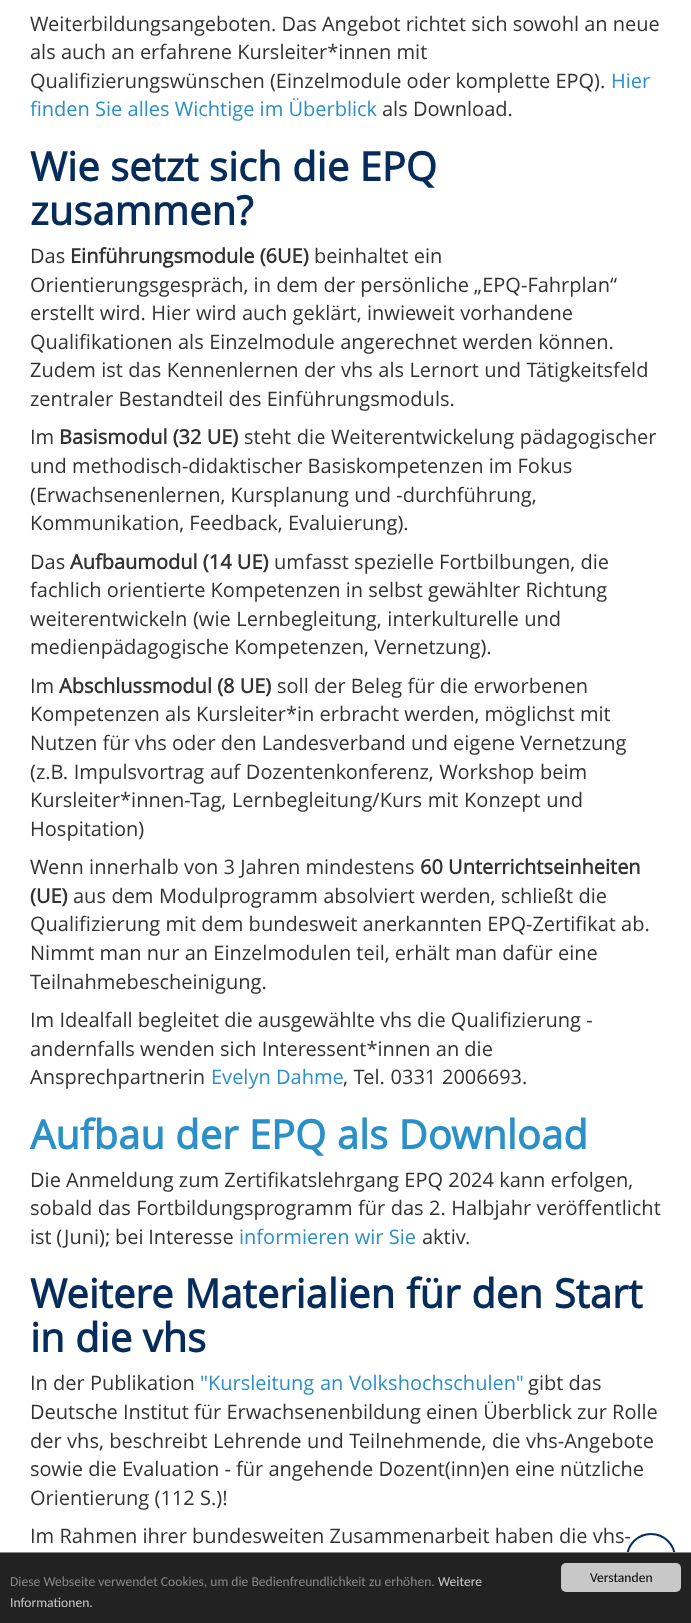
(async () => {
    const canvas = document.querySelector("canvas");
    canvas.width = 691;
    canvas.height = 1623;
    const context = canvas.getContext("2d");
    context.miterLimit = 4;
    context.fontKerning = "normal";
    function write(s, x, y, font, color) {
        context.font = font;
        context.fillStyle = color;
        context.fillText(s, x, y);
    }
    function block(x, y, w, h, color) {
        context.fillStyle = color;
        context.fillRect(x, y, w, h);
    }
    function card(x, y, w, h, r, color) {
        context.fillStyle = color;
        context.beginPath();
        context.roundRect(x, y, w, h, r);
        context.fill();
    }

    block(0, 0, 691, 1623, "rgb(255, 255, 255)");
    write("Weiterbildungsangeboten. Das Angebot richtet sich sowohl an neue", 30, 31, "20px Open Sans", "rgb(51, 51, 51)");
    write("als auch an erfahrene Kursleiter*innen mit", 30, 59, "20px Open Sans", "rgb(51, 51, 51)");
    write("Qualifizierungswünschen (Einzelmodule oder komplette EPQ).", 30, 88, "20px Open Sans", "rgb(51, 51, 51)");
    write("Hier", 611, 88, "20px Open Sans", "rgb(43, 144, 200)");
    write("finden Sie alles Wichtige im Überblick", 30, 116, "20px Open Sans", "rgb(43, 144, 200)");
    write("als Download.", 382, 116, "20px Open Sans", "rgb(51, 51, 51)");
    write("Wie setzt sich die EPQ", 30, 181, "bold 40px Open Sans", "rgb(5, 44, 90)");
    write("zusammen?", 30, 225, "bold 40px Open Sans", "rgb(5, 44, 90)");
    write("Das", 30, 263, "20px Open Sans", "rgb(51, 51, 51)");
    write("Einführungsmodule (6UE)", 70, 263, "bold 20px Open Sans", "rgb(51, 51, 51)");
    write("beinhaltet ein", 314, 263, "20px Open Sans", "rgb(51, 51, 51)");
    write("Orientierungsgespräch, in dem der persönliche „EPQ-Fahrplan“", 30, 292, "20px Open Sans", "rgb(51, 51, 51)");
    context.wordSpacing = "0.25px";
    write("erstellt wird. Hier wird auch geklärt, inwieweit vorhandene", 30, 320, "20px Open Sans", "rgb(51, 51, 51)");
    write("Qualifikationen als Einzelmodule angerechnet werden können.", 30, 349, "20px Open Sans", "rgb(51, 51, 51)");
    write("Zudem ist das Kennenlernen der vhs als Lernort und Tätigkeitsfeld", 30, 377, "20px Open Sans", "rgb(51, 51, 51)");
    context.wordSpacing = "0px";
    write("zentraler Bestandteil des Einführungsmoduls.", 30, 406, "20px Open Sans", "rgb(51, 51, 51)");
    write("Im", 30, 444, "20px Open Sans", "rgb(51, 51, 51)");
    write("Basismodul (32 UE)", 59, 444, "bold 20px Open Sans", "rgb(51, 51, 51)");
    context.wordSpacing = "0.5px";
    write("steht die Weiterentwickelung pädagogischer", 244, 444, "20px Open Sans", "rgb(51, 51, 51)");
    context.wordSpacing = "0px";
    write("und methodisch-didaktischer Basiskompetenzen im Fokus", 30, 473, "20px Open Sans", "rgb(51, 51, 51)");
    write("(Erwachsenenlernen, Kursplanung und -durchführung,", 30, 502, "20px Open Sans", "rgb(51, 51, 51)");
    write("Kommunikation, Feedback, Evaluierung).", 30, 530, "20px Open Sans", "rgb(51, 51, 51)");
    write("Das", 30, 569, "20px Open Sans", "rgb(51, 51, 51)");
    write("Aufbaumodul (14 UE)", 70, 569, "bold 20px Open Sans", "rgb(51, 51, 51)");
    write("umfasst spezielle Fortbilbungen, die", 274, 569, "20px Open Sans", "rgb(51, 51, 51)");
    write("fachlich orientierte Kompetenzen in selbst gewählter Richtung", 30, 597, "20px Open Sans", "rgb(51, 51, 51)");
    context.wordSpacing = "0.5px";
    write("weiterentwickeln (wie Lernbegleitung, interkulturelle und", 30, 626, "20px Open Sans", "rgb(51, 51, 51)");
    context.wordSpacing = "0px";
    write("medienpädagogische Kompetenzen, Vernetzung).", 30, 654, "20px Open Sans", "rgb(51, 51, 51)");
    write("Im", 30, 693, "20px Open Sans", "rgb(51, 51, 51)");
    write("Abschlussmodul (8 UE)", 59, 693, "bold 20px Open Sans", "rgb(51, 51, 51)");
    write("soll der Beleg für die erworbenen", 277, 693, "20px Open Sans", "rgb(51, 51, 51)");
    write("Kompetenzen als Kursleiter*in erbracht werden, möglichst mit", 30, 721, "20px Open Sans", "rgb(51, 51, 51)");
    write("Nutzen für vhs oder den Landesverband und eigene Vernetzung", 30, 750, "20px Open Sans", "rgb(51, 51, 51)");
    context.wordSpacing = "0.5px";
    write("(z.B. Impulsvortrag auf Dozentenkonferenz, Workshop beim", 30, 779, "20px Open Sans", "rgb(51, 51, 51)");
    write("Kursleiter*innen-Tag, Lernbegleitung/Kurs mit Konzept und", 30, 807, "20px Open Sans", "rgb(51, 51, 51)");
    context.wordSpacing = "0px";
    write("Hospitation)", 30, 836, "20px Open Sans", "rgb(51, 51, 51)");
    write("Wenn innerhalb von 3 Jahren mindestens", 30, 874, "20px Open Sans", "rgb(51, 51, 51)");
    write("60 Unterrichtseinheiten", 420, 874, "bold 20px Open Sans", "rgb(51, 51, 51)");
    write("(UE)", 30, 903, "bold 20px Open Sans", "rgb(51, 51, 51)");
    context.wordSpacing = "0.25px";
    write("aus dem Modulprogramm absolviert werden, schließt die", 73, 903, "20px Open Sans", "rgb(51, 51, 51)");
    context.wordSpacing = "0px";
    write("Qualifizierung mit dem bundesweit anerkannten EPQ-Zertifikat ab.", 30, 931, "20px Open Sans", "rgb(51, 51, 51)");
    write("Nimmt man nur an Einzelmodulen teil, erhält man dafür eine", 30, 960, "20px Open Sans", "rgb(51, 51, 51)");
    write("Teilnahmebescheinigung.", 30, 989, "20px Open Sans", "rgb(51, 51, 51)");
    write("Im Idealfall begleitet die ausgewählte vhs die Qualifizierung -", 30, 1027, "20px Open Sans", "rgb(51, 51, 51)");
    write("andernfalls wenden sich Interessent*innen an die", 30, 1056, "20px Open Sans", "rgb(51, 51, 51)");
    write("Ansprechpartnerin", 30, 1084, "20px Open Sans", "rgb(51, 51, 51)");
    write("Evelyn Dahme", 211, 1084, "20px Open Sans", "rgb(43, 144, 200)");
    context.wordSpacing = "0.5px";
    write(", Tel. 0331 2006693.", 343, 1084, "20px Open Sans", "rgb(51, 51, 51)");
    context.wordSpacing = "0px";
    write("Aufbau der EPQ als Download", 30, 1149, "bold 40px Open Sans", "rgb(43, 144, 200)");
    write("Die Anmeldung zum Zertifikatslehrgang EPQ 2024 kann erfolgen,", 30, 1187, "20px Open Sans", "rgb(51, 51, 51)");
    context.wordSpacing = "0.25px";
    write("sobald das Fortbildungsprogramm für das 2. Halbjahr veröffentlicht", 30, 1215, "20px Open Sans", "rgb(51, 51, 51)");
    context.wordSpacing = "-0.5px";
    write("ist (Juni); bei Interesse", 30, 1244, "20px Open Sans", "rgb(51, 51, 51)");
    context.wordSpacing = "0px";
    write("informieren wir Sie", 239, 1244, "20px Open Sans", "rgb(43, 144, 200)");
    write("aktiv.", 422, 1244, "20px Open Sans", "rgb(51, 51, 51)");
    context.wordSpacing = "0.5px";
    write("Weitere Materialien für den Start", 30, 1308, "bold 40px Open Sans", "rgb(5, 44, 90)");
    context.wordSpacing = "0px";
    write("in die vhs", 30, 1352, "bold 40px Open Sans", "rgb(5, 44, 90)");
    write("In der Publikation", 30, 1390, "20px Open Sans", "rgb(51, 51, 51)");
    context.wordSpacing = "0.5px";
    write("\"Kursleitung an Volkshochschulen\"", 200, 1390, "20px Open Sans", "rgb(43, 144, 200)");
    context.wordSpacing = "0px";
    write("gibt das", 528, 1390, "20px Open Sans", "rgb(51, 51, 51)");
    write("Deutsche Institut für Erwachsenenbildung einen Überblick zur Rolle", 30, 1419, "20px Open Sans", "rgb(51, 51, 51)");
    context.wordSpacing = "0.25px";
    write("der vhs, beschreibt Lehrende und Teilnehmende, die vhs-Angebote", 30, 1448, "20px Open Sans", "rgb(51, 51, 51)");
    context.wordSpacing = "0px";
    write("sowie die Evaluation - für angehende Dozent(inn)en eine nützliche", 30, 1476, "20px Open Sans", "rgb(51, 51, 51)");
    write("Orientierung (112 S.)!", 30, 1505, "20px Open Sans", "rgb(51, 51, 51)");
    write("Im Rahmen ihrer bundesweiten Zusammenarbeit haben die vhs-", 30, 1543, "20px Open Sans", "rgb(51, 51, 51)");
    context.beginPath();
    context.arc(651, 1558, 24, 0, Math.PI * 2);
    context.strokeStyle = "rgb(5, 44, 90)";
    context.lineWidth = 2;
    context.stroke();
    block(0, 1553, 691, 70, "rgb(34, 34, 34)");
    block(0, 1552, 691, 1, "rgb(136, 136, 136)");
    write("Diese Webseite verwendet Cookies, um die Bedienfreundlichkeit zu erhöhen.", 10, 1586, "13.6px Carlito", "rgb(136, 136, 136)");
    write("Weitere", 438, 1586, "13.6px Carlito", "rgb(200, 200, 200)");
    write("Informationen.", 10, 1607, "13.6px Carlito", "rgb(200, 200, 200)");
    card(561, 1563, 120, 29, 5, "rgb(200, 200, 200)");
    write("Verstanden", 590, 1582, "13.6px Carlito", "rgb(0, 0, 0)");
})();
